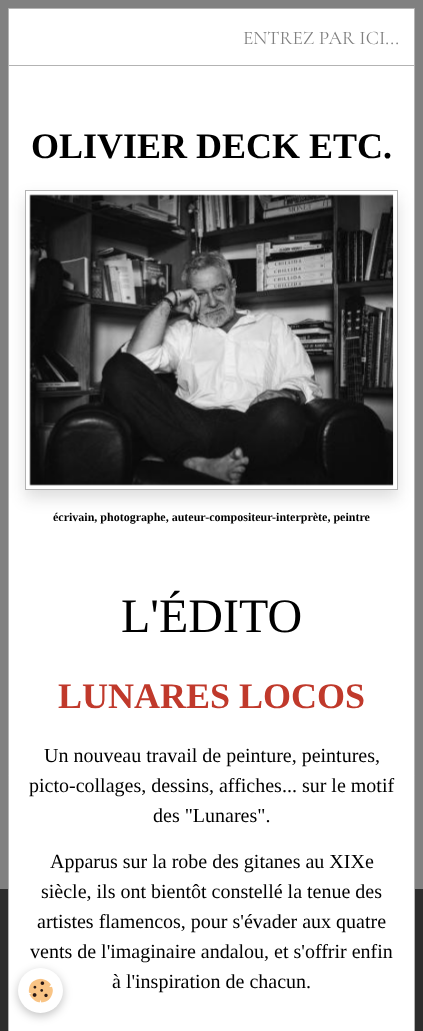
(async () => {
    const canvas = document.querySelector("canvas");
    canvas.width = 423;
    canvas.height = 1031;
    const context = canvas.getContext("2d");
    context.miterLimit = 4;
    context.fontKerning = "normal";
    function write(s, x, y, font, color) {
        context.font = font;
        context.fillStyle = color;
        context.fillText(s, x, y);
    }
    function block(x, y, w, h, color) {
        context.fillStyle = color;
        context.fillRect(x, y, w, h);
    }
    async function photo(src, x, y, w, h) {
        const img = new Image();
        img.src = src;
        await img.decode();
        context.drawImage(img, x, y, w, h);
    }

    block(0, 0, 423, 1031, "rgb(128, 128, 128)");
    block(0, 889, 423, 142, "rgb(45, 45, 45)");
    context.fillStyle = "rgb(255, 255, 255)";
    context.beginPath();
    context.rect(8.5, 8.5, 406, 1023);
    context.fill();
    context.strokeStyle = "rgb(179, 179, 179)";
    context.stroke();
    block(9, 65, 405, 1, "rgb(179, 179, 179)");
    write("ENTREZ PAR ICI...", 243, 44, "19.25px Cormorant Garamond", "rgb(128, 128, 128)");
    write("OLIVIER DECK ETC.", 31, 158, "bold 36px Liberation Serif", "rgb(0, 0, 0)");
    context.save();
    context.beginPath();
    context.moveTo(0, 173);
    context.lineTo(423, 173);
    context.lineTo(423, 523);
    context.lineTo(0, 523);
    context.closePath();
    context.moveTo(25, 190);
    context.lineTo(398, 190);
    context.lineTo(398, 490);
    context.lineTo(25, 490);
    context.closePath();
    context.clip("evenodd");
    context.fillStyle = "rgba(26, 26, 26, 0.15)";
    context.filter = "blur(8px)";
    context.beginPath();
    context.rect(25, 198, 373, 300);
    context.fill();
    context.filter = "none";
    context.restore();
    context.strokeRect(25.5, 190.5, 372, 299);
    await photo("media/1.png", 29, 194, 365, 292);
    write("écrivain, photographe, auteur-compositeur-interprète, peintre", 53, 521, "bold 12px Liberation Serif", "rgb(0, 0, 0)");
    write("L'ÉDITO", 121, 632, "48px Liberation Serif", "rgb(0, 0, 0)");
    write("LUNARES LOCOS", 58, 708, "bold 36px Liberation Serif", "rgb(192, 57, 43)");
    write("Un nouveau travail de peinture, peintures,", 44, 762, "20px Liberation Serif", "rgb(0, 0, 0)");
    write("picto-collages, dessins, affiches... sur le motif", 29, 792, "20px Liberation Serif", "rgb(0, 0, 0)");
    write("des \"Lunares\".", 153, 822, "20px Liberation Serif", "rgb(0, 0, 0)");
    write("Apparus sur la robe des gitanes au XIXe", 50, 868, "20px Liberation Serif", "rgb(0, 0, 0)");
    write("siècle, ils ont bientôt constellé la tenue des", 41, 898, "20px Liberation Serif", "rgb(0, 0, 0)");
    write("artistes flamencos, pour s'évader aux quatre", 37, 928, "20px Liberation Serif", "rgb(0, 0, 0)");
    write("vents de l'imaginaire andalou, et s'offrir enfin", 30, 958, "20px Liberation Serif", "rgb(0, 0, 0)");
    write("à l'inspiration de chacun.", 112, 988, "20px Liberation Serif", "rgb(0, 0, 0)");
    context.fillStyle = "rgba(0, 0, 0, 0.24)";
    context.filter = "blur(5px)";
    context.beginPath();
    context.roundRect(18, 971, 45, 45, 22.5);
    context.fill();
    context.filter = "none";
    context.fillStyle = "rgb(255, 255, 255)";
    context.beginPath();
    context.arc(40.5, 990.5, 22.5, 0, Math.PI * 2);
    context.fill();
    await photo("media/2.png", 28, 978, 25, 25);
})();
